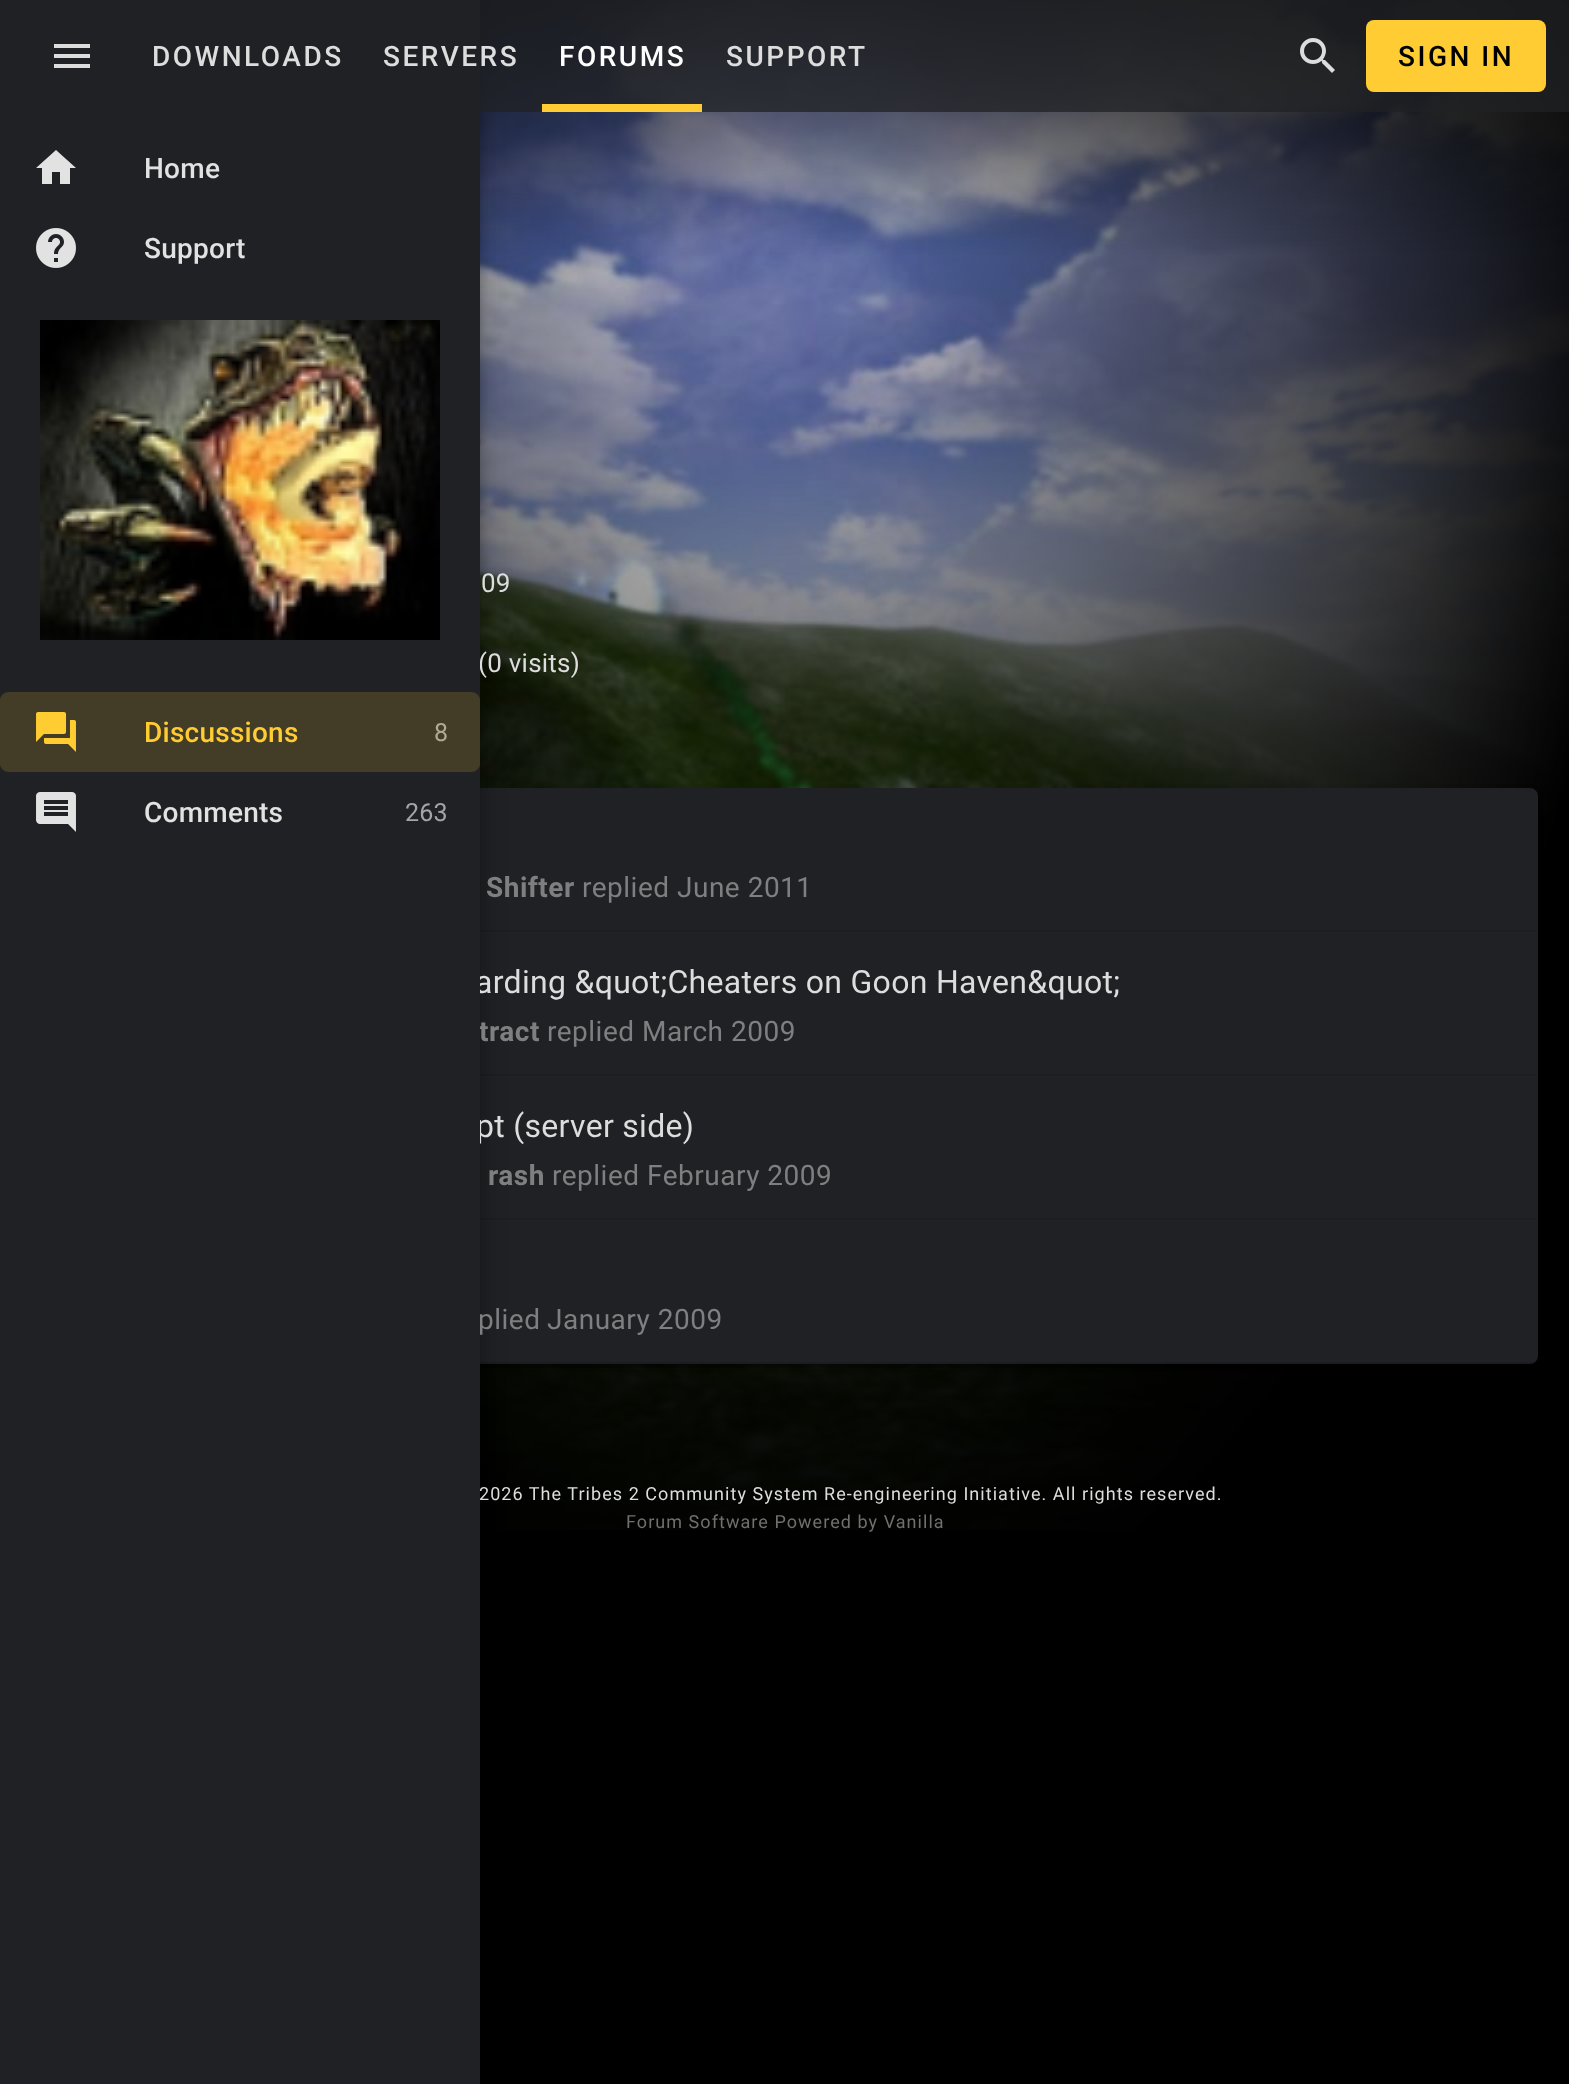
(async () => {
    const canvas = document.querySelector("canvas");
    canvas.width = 1569;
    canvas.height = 2084;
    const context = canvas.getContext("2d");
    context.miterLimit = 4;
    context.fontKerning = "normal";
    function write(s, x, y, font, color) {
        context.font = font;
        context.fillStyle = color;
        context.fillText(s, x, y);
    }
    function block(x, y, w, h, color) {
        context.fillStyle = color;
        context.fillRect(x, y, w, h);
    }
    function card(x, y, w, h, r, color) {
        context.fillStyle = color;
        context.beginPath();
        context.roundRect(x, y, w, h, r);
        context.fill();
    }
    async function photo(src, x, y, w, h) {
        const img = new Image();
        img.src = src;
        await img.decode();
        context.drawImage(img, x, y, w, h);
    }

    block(0, 0, 1569, 2084, "rgb(0, 0, 0)");
    await photo("media/6.png", 480, 0, 1089, 1530);
    context.fillStyle = "rgba(0, 0, 0, 0.12)";
    context.filter = "blur(3px)";
    context.beginPath();
    context.roundRect(32, 790, 1506, 576, 8);
    context.fill();
    context.filter = "none";
    context.fillStyle = "rgba(0, 0, 0, 0.14)";
    context.filter = "blur(1px)";
    context.beginPath();
    context.roundRect(32, 790, 1506, 576, 8);
    context.fill();
    context.filter = "none";
    context.fillStyle = "rgba(0, 0, 0, 0.2)";
    context.filter = "blur(1px)";
    context.beginPath();
    context.roundRect(34, 794, 1502, 572, 6);
    context.fill();
    context.filter = "none";
    card(32, 788, 1506, 576, 8, "rgb(32, 33, 36)");
    block(480, 930, 1058, 2, "rgb(29, 30, 32)");
    block(480, 1074, 1058, 2, "rgb(29, 30, 32)");
    block(480, 1218, 1058, 2, "rgb(29, 30, 32)");
    block(480, 1362, 1058, 2, "rgba(0, 0, 0, 0.1)");
    context.fillStyle = "rgba(0, 0, 0, 0.12)";
    context.filter = "blur(14px)";
    context.beginPath();
    context.rect(0, 2, 480, 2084);
    context.fill();
    context.filter = "none";
    context.fillStyle = "rgba(0, 0, 0, 0.14)";
    context.filter = "blur(8px)";
    context.beginPath();
    context.rect(0, 10, 480, 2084);
    context.fill();
    context.filter = "none";
    context.fillStyle = "rgba(0, 0, 0, 0.2)";
    context.filter = "blur(5px)";
    context.beginPath();
    context.rect(2, 8, 476, 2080);
    context.fill();
    context.filter = "none";
    block(480, 0, 1089, 112, "rgba(32, 33, 36, 0.75)");
    context.letterSpacing = "0.25px";
    write("(0 visits)", 478, 672, "26px Roboto", "rgb(221, 221, 221)");
    context.letterSpacing = "0.3px";
    write("arding &quot;Cheaters on Goon Haven&quot;", 475, 993, "32px Roboto", "rgb(221, 221, 221)");
    context.letterSpacing = "0.5px";
    write("tract", 479, 1041, "bold 28px Roboto", "rgb(127, 127, 129)");
    context.letterSpacing = "0.3px";
    write("pt (server side)", 476, 1137, "32px Roboto", "rgb(221, 221, 221)");
    context.letterSpacing = "0.5px";
    write("plied", 478, 1329, "28px Roboto", "rgb(127, 127, 129)");
    context.letterSpacing = "1.05px";
    write("2026 The Tribes 2 Community System Re-engineering Initiative. All rights reserved.", 479, 1500, "18px Roboto", "rgb(221, 221, 221)");
    block(0, 0, 480, 2084, "rgb(32, 33, 36)");
    context.fillStyle = "rgb(221, 221, 221)";
    context.beginPath();
    context.moveTo(54, 44);
    context.lineTo(90, 44);
    context.lineTo(90, 48);
    context.lineTo(54, 48);
    context.closePath();
    context.moveTo(54, 58);
    context.lineTo(54, 54);
    context.lineTo(90, 54);
    context.lineTo(90, 58);
    context.closePath();
    context.moveTo(54, 68);
    context.lineTo(54, 64);
    context.lineTo(90, 64);
    context.lineTo(90, 68);
    context.closePath();
    context.fill();
    context.letterSpacing = "2.5px";
    write("DOWNLOADS", 152, 66, "500 28px Roboto", "rgb(221, 221, 221)");
    write("SERVERS", 383, 66, "500 28px Roboto", "rgb(221, 221, 221)");
    block(542, 104, 160, 8, "rgb(255, 204, 51)");
    write("FORUMS", 559, 66, "500 28px Roboto", "rgb(254, 254, 255)");
    write("SUPPORT", 726, 66, "500 28px Roboto", "rgb(221, 221, 221)");
    await photo("media/1.png", 1300, 38, 35, 35);
    card(1366, 20, 180, 72, 8, "rgb(255, 204, 51)");
    write("SIGN IN", 1398, 66, "500 28px Roboto", "rgb(0, 0, 0)");
    context.fillStyle = "rgb(226, 226, 227)";
    context.beginPath();
    context.moveTo(52, 184);
    context.lineTo(42, 184);
    context.lineTo(42, 168);
    context.lineTo(36, 168);
    context.lineTo(56, 150);
    context.lineTo(76, 168);
    context.lineTo(70, 168);
    context.lineTo(70, 184);
    context.lineTo(60, 184);
    context.lineTo(60, 172);
    context.lineTo(52, 172);
    context.closePath();
    context.fill();
    context.letterSpacing = "0.25px";
    write("Home", 144, 178, "500 28px Roboto", "rgb(226, 226, 227)");
    await photo("media/2.png", 36, 228, 40, 40);
    write("Support", 144, 258, "500 28px Roboto", "rgb(226, 226, 227)");
    await photo("media/3.png", 40, 320, 400, 320);
    await photo("media/4.png", 36, 712, 40, 40);
    write("Discussions", 144, 742, "500 28px Roboto", "rgb(255, 204, 51)");
    write("8", 434, 741, "25px Roboto", "rgb(164, 165, 166)");
    context.fillStyle = "rgba(255, 204, 51, 0.16)";
    context.beginPath();
    context.moveTo(8, 692);
    context.bezierCurveTo(4, 692, 0, 696, 0, 700);
    context.lineTo(0, 764);
    context.bezierCurveTo(0, 768, 4, 772, 8, 772);
    context.lineTo(472, 772);
    context.bezierCurveTo(476, 772, 480, 768, 480, 764);
    context.lineTo(480, 700);
    context.bezierCurveTo(480, 696, 476, 692, 472, 692);
    context.closePath();
    context.fill();
    await photo("media/5.png", 36, 792, 40, 40);
    write("Comments", 144, 822, "500 28px Roboto", "rgb(226, 226, 227)");
    write("263", 405, 821, "25px Roboto", "rgb(164, 165, 166)");
    write("09", 481, 592, "26px Roboto", "rgb(221, 221, 221)");
    context.letterSpacing = "0.5px";
    write("Shifter", 486, 897, "bold 28px Roboto", "rgb(127, 127, 129)");
    write("replied", 582, 897, "28px Roboto", "rgb(127, 127, 129)");
    write("June 2011", 677, 897, "28px Roboto", "rgb(127, 127, 129)");
    write("replied", 547, 1041, "28px Roboto", "rgb(127, 127, 129)");
    write("March 2009", 642, 1041, "28px Roboto", "rgb(127, 127, 129)");
    write("rash", 488, 1185, "bold 28px Roboto", "rgb(127, 127, 129)");
    write("replied", 552, 1185, "28px Roboto", "rgb(127, 127, 129)");
    write("February 2009", 647, 1185, "28px Roboto", "rgb(127, 127, 129)");
    write("January 2009", 547, 1329, "28px Roboto", "rgb(127, 127, 129)");
    context.letterSpacing = "1.05px";
    write("Forum Software Powered by Vanilla", 626, 1528, "18px Roboto", "rgb(112, 112, 111)");
})();
